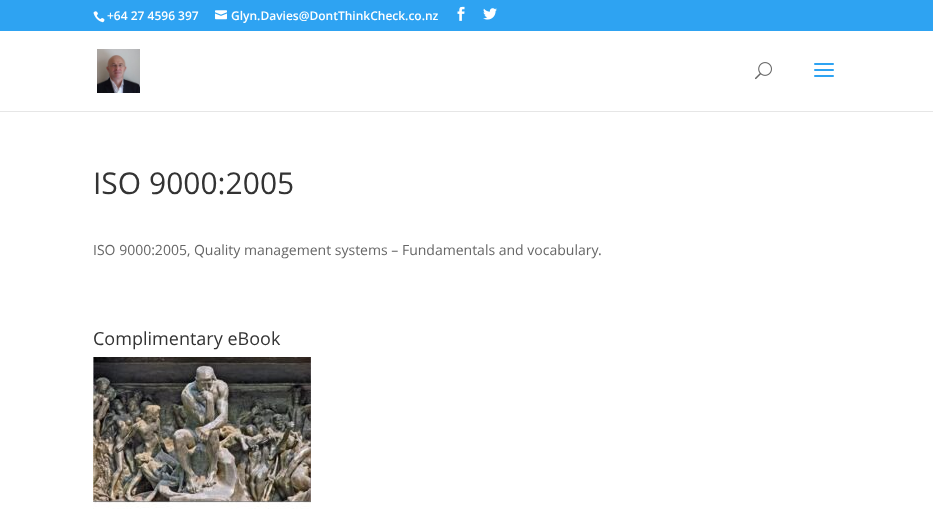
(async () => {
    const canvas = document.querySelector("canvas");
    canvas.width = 933;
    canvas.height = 514;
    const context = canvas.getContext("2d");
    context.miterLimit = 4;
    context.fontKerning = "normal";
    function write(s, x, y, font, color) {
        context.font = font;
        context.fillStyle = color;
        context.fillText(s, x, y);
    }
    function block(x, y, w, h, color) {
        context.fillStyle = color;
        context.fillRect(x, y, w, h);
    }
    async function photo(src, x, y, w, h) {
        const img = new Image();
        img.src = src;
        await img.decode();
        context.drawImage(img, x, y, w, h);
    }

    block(0, 0, 933, 514, "rgb(255, 255, 255)");
    block(0, 0, 933, 31, "rgb(46, 163, 242)");
    await photo("media/1.png", 93, 11, 12, 12);
    write("+64 27 4596 397", 107, 20, "600 12px Open Sans", "rgb(255, 255, 255)");
    await photo("media/2.png", 215, 10, 12, 10);
    write("Glyn.Davies@DontThinkCheck.co.nz", 231, 20, "600 12px Open Sans", "rgb(255, 255, 255)");
    await photo("media/3.png", 457, 6, 8, 15);
    await photo("media/4.png", 483, 8, 14, 12);
    block(0, 111, 933, 1, "rgb(230, 230, 230)");
    await photo("media/5.png", 97, 49, 43, 44);
    await photo("media/6.png", 755, 62, 17, 18);
    await photo("media/7.png", 814, 63, 20, 14);
    write("ISO 9000:2005", 93, 194, "30px Open Sans", "rgb(51, 51, 51)");
    write("ISO 9000:2005, Quality management systems – Fundamentals and vocabulary.", 93, 255, "14px Open Sans", "rgb(102, 102, 102)");
    write("Complimentary eBook", 93, 345, "18px Open Sans", "rgb(51, 51, 51)");
    await photo("media/8.png", 93, 357, 218, 152);
})();
